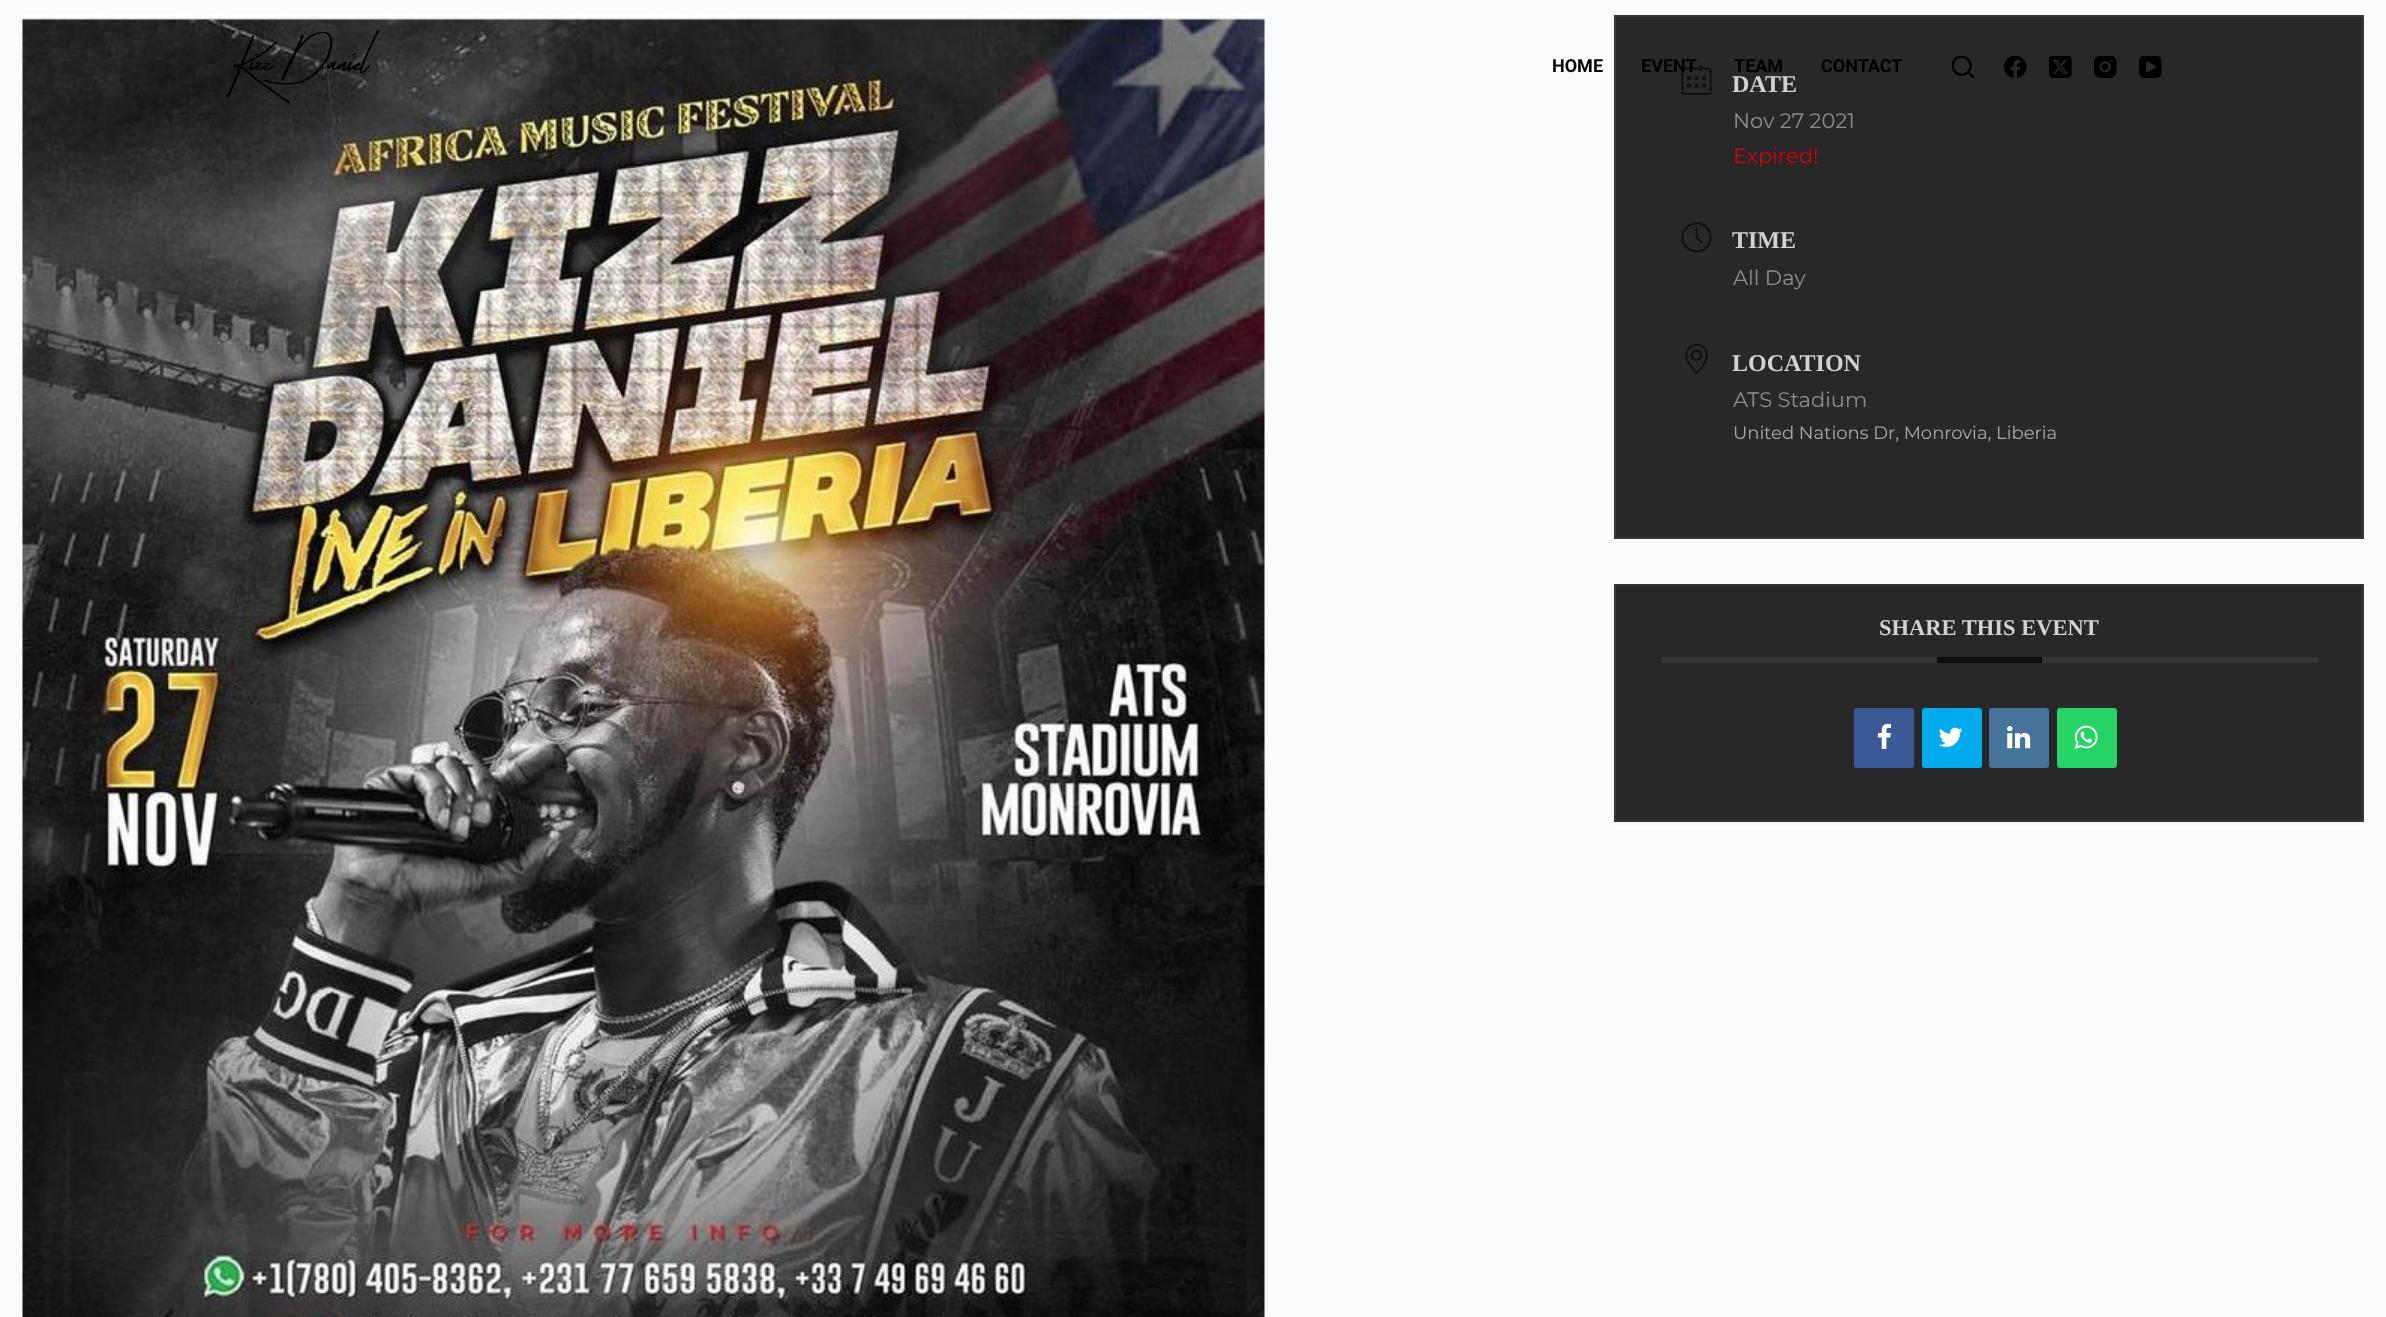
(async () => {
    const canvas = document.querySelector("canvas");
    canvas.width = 2386;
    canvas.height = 1317;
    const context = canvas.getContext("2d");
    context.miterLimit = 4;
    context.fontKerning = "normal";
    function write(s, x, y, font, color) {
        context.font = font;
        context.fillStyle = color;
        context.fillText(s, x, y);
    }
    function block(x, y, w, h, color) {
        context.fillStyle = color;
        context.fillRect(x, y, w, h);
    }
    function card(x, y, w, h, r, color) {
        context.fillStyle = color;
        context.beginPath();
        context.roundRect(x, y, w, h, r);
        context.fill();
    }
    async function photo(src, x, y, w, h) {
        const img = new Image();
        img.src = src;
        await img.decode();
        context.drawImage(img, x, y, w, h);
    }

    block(0, 0, 2386, 1317, "rgb(250, 251, 252)");
    await photo("media/7.png", 22, 15, 1243, 1302);
    await photo("media/1.png", 226, 30, 154, 74);
    write("HOME", 1552, 72, "bold 18px Roboto", "rgb(0, 0, 0)");
    context.fillStyle = "rgb(40, 40, 40)";
    context.beginPath();
    context.rect(1615, 16, 748, 522);
    context.fill();
    context.strokeStyle = "rgb(53, 53, 53)";
    context.lineWidth = 2;
    context.stroke();
    await photo("media/8.png", 1681, 65, 31, 30);
    write("EVENT", 1641, 72, "bold 18px Roboto", "rgb(0, 0, 0)");
    write("TEAM", 1734, 72, "bold 18px Roboto", "rgb(0, 0, 0)");
    write("CONTACT", 1821, 72, "bold 18px Roboto", "rgb(0, 0, 0)");
    await photo("media/2.png", 1952, 56, 22, 22);
    await photo("media/3.png", 2004, 56, 23, 22);
    await photo("media/4.png", 2049, 56, 23, 22);
    await photo("media/5.png", 2094, 56, 23, 22);
    await photo("media/6.png", 2139, 56, 23, 22);
    block(1614, 539, 750, 3, "rgb(246, 247, 248)");
    write("DATE", 1732, 92, "bold 24px Liberation Serif", "rgb(210, 210, 210)");
    write("Nov 27 2021", 1733, 128, "21px Montserrat", "rgb(141, 141, 141)");
    write("Expired!", 1733, 163, "21px Montserrat", "rgb(216, 0, 12)");
    await photo("media/9.png", 1681, 222, 31, 31);
    write("TIME", 1732, 248, "bold 24px Liberation Serif", "rgb(210, 210, 210)");
    write("All Day", 1733, 285, "21px Montserrat", "rgb(141, 141, 141)");
    await photo("media/10.png", 1685, 344, 23, 30);
    write("LOCATION", 1732, 371, "bold 24px Liberation Serif", "rgb(210, 210, 210)");
    write("ATS Stadium", 1733, 407, "21px Montserrat", "rgb(141, 141, 141)");
    write("United Nations Dr, Monrovia, Liberia", 1733, 439, "18px Montserrat", "rgb(169, 169, 169)");
    block(1614, 822, 750, 3, "rgb(246, 247, 248)");
    context.fillStyle = "rgb(40, 40, 40)";
    context.beginPath();
    context.rect(1615, 585, 748, 236);
    context.fill();
    context.stroke();
    block(1661, 657, 657, 6, "rgb(53, 53, 53)");
    write("SHARE THIS EVENT", 1879, 635, "bold 22.5px Liberation Serif", "rgb(210, 210, 210)");
    block(1937, 657, 105, 6, "rgb(15, 15, 17)");
    card(1854, 708, 60, 60, 3, "rgb(59, 89, 150)");
    await photo("media/11.png", 1877, 723, 14, 26);
    card(1922, 708, 60, 60, 3, "rgb(0, 172, 238)");
    await photo("media/12.png", 1938, 727, 25, 20);
    card(1989, 708, 60, 60, 3, "rgb(69, 115, 153)");
    await photo("media/13.png", 2007, 726, 24, 23);
    card(2057, 708, 60, 60, 3, "rgb(37, 211, 102)");
    await photo("media/14.png", 2074, 725, 24, 24);
})();
